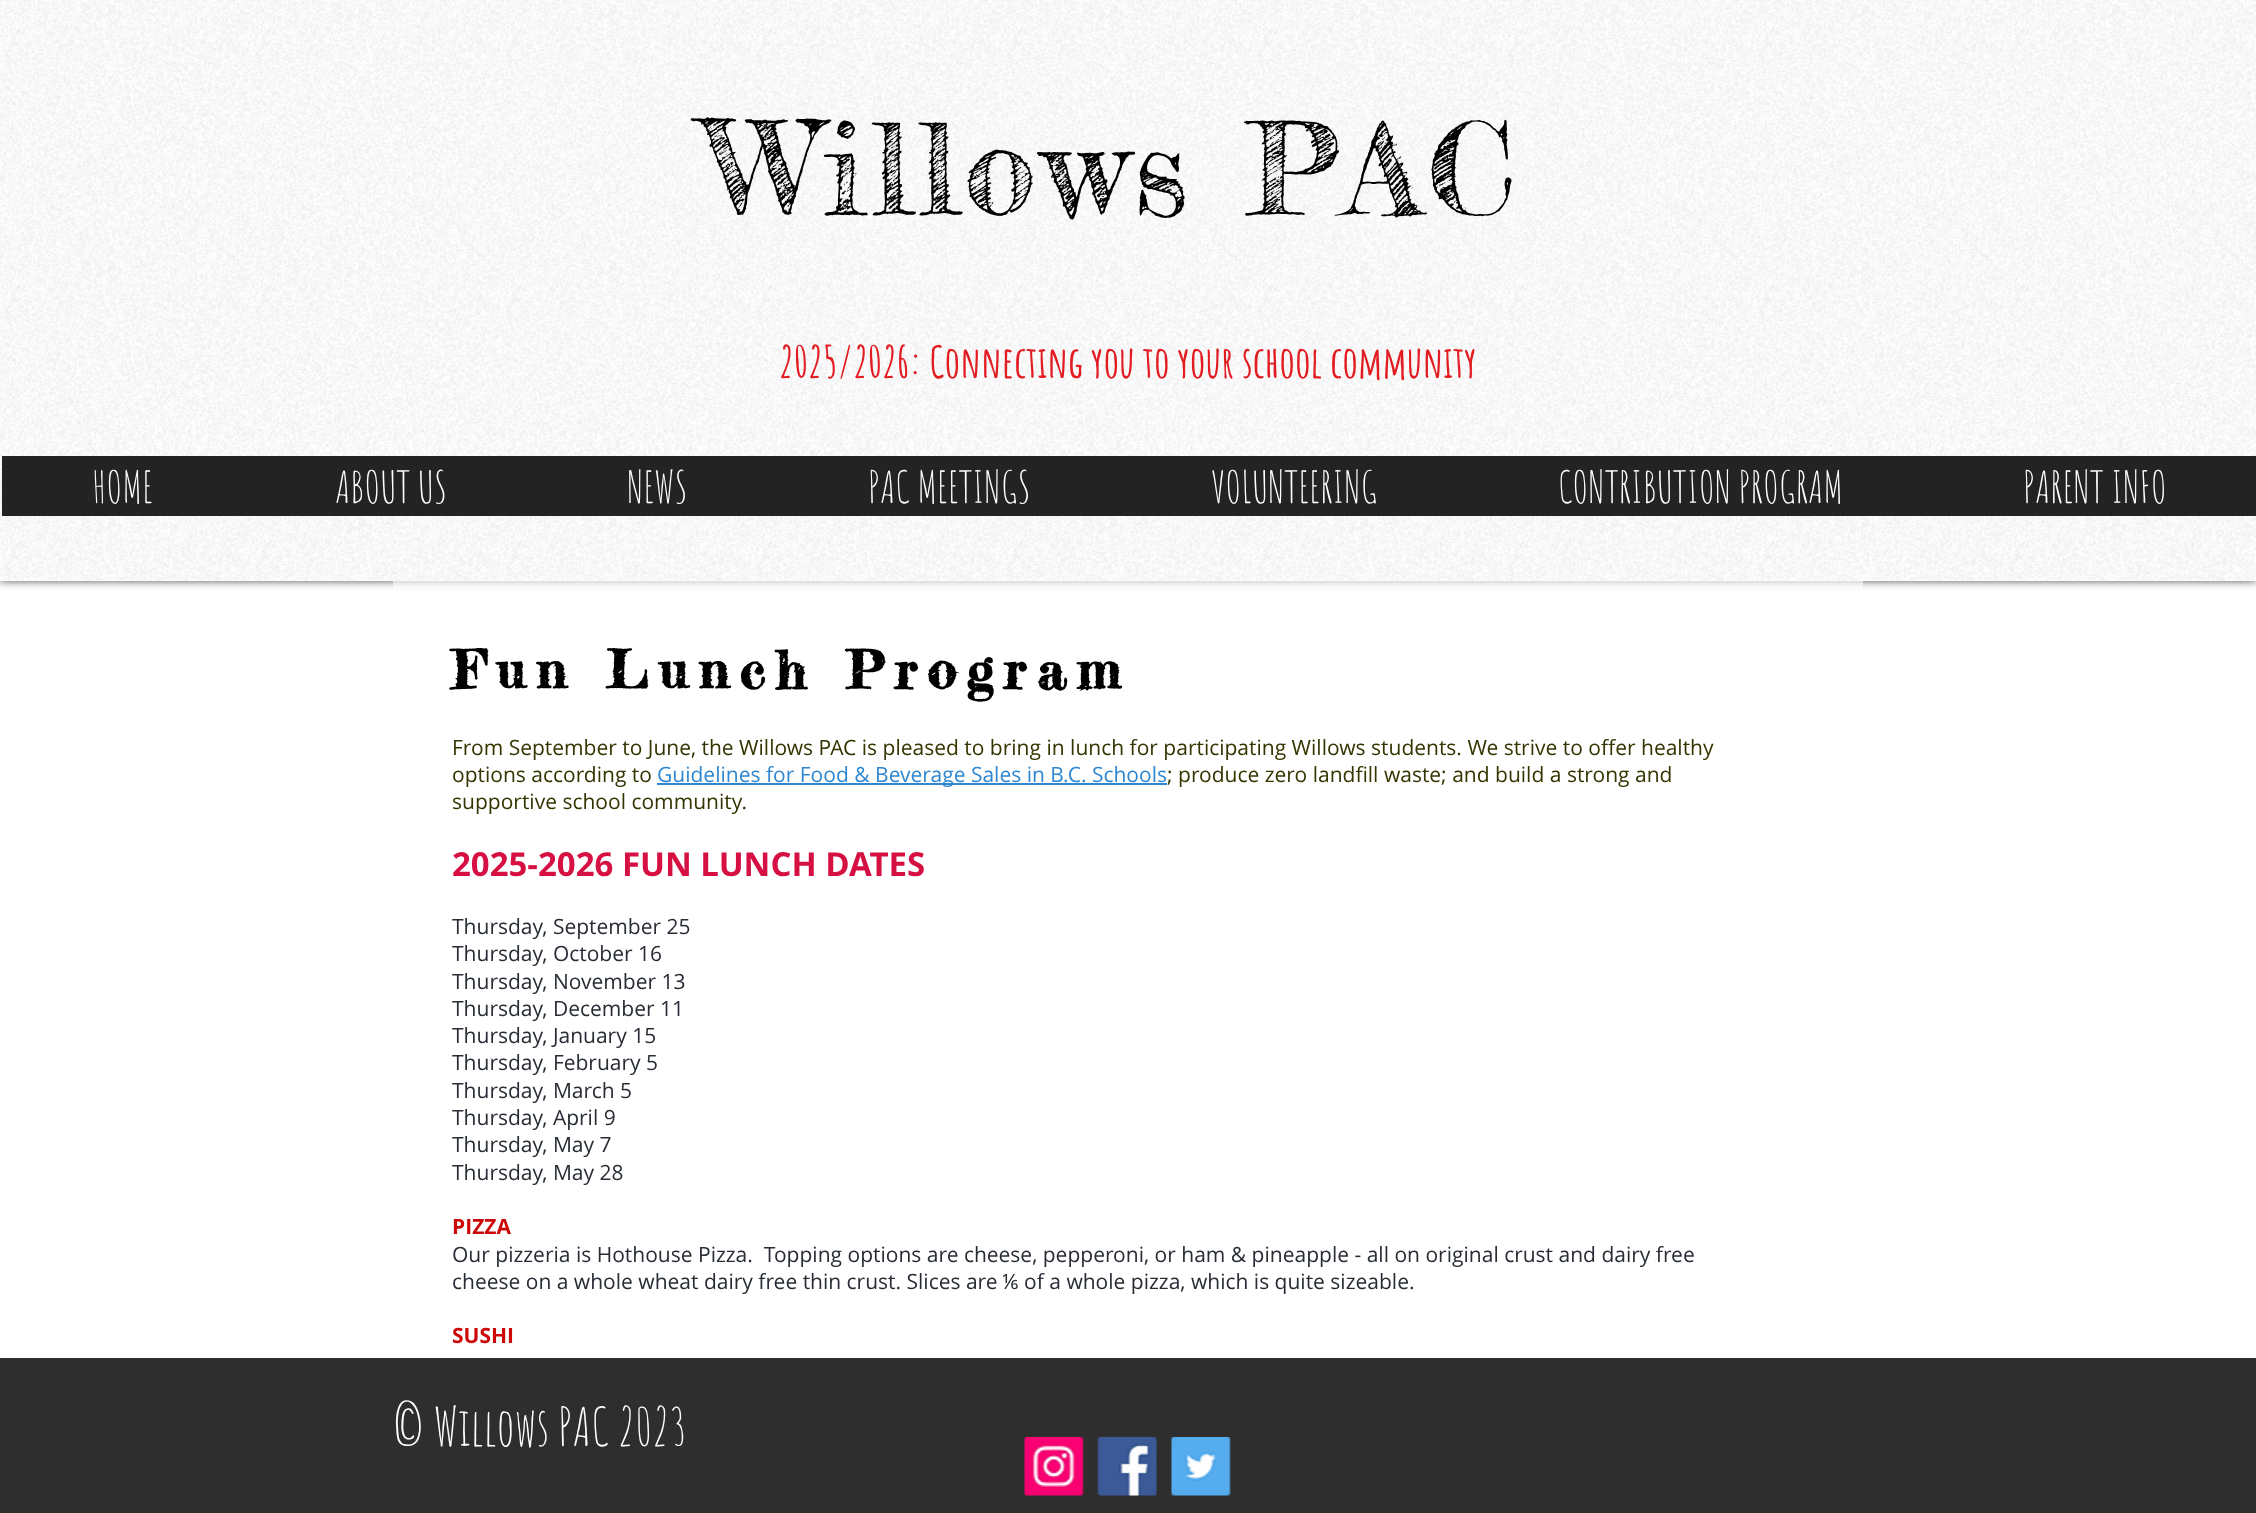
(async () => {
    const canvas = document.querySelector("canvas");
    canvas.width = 2256;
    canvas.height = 1513;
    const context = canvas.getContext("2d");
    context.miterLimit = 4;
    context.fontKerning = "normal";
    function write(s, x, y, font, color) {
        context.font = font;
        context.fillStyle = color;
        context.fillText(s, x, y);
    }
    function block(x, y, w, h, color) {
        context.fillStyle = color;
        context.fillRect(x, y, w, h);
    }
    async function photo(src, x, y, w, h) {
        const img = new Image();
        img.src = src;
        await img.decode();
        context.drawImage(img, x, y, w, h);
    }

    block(0, 0, 2256, 1513, "rgb(255, 255, 255)");
    context.fillStyle = "rgba(0, 0, 0, 0.7)";
    context.filter = "blur(4px)";
    context.beginPath();
    context.rect(0, 0, 2256, 581);
    context.fill();
    context.filter = "none";
    block(0, 0, 2256, 581, "rgb(255, 255, 255)");
    await photo("media/1.png", 0, 0, 2256, 581);
    context.letterSpacing = "6.4px";
    write("Willows PAC", 706, 215, "127.5px Fredericka the Great", "rgb(0, 0, 0)");
    context.letterSpacing = "0px";
    write("2025/2026: Connecting you to your school community", 779, 378, "bold 43.5px Amatic SC", "rgb(226, 28, 33)");
    block(2, 456, 2254, 60, "rgb(35, 35, 35)");
    write("HOME", 92, 503, "43.5px Amatic SC", "rgb(255, 255, 255)");
    write("ABOUT US", 335, 503, "43.5px Amatic SC", "rgb(255, 255, 255)");
    write("NEWS", 627, 503, "43.5px Amatic SC", "rgb(255, 255, 255)");
    write("PAC MEETINGS", 868, 503, "43.5px Amatic SC", "rgb(255, 255, 255)");
    write("VOLUNTEERING", 1211, 503, "43.5px Amatic SC", "rgb(255, 255, 255)");
    write("CONTRIBUTION PROGRAM", 1558, 503, "43.5px Amatic SC", "rgb(255, 255, 255)");
    write("PARENT INFO", 2023, 503, "43.5px Amatic SC", "rgb(255, 255, 255)");
    block(393, 581, 1470, 7, "rgba(253, 253, 254, 0.6)");
    context.letterSpacing = "10.5px";
    write("Fun Lunch Program", 452, 689, "bold 52.5px Fredericka the Great", "rgb(0, 0, 0)");
    context.letterSpacing = "0px";
    write("From September to June, the Willows PAC is pleased to bring in lunch for participating Willows students. We strive to offer healthy", 452, 755, "21px Open Sans", "rgb(53, 53, 2)");
    write("options according to", 452, 782, "21px Open Sans", "rgb(53, 53, 2)");
    block(657, 783, 510, 2, "rgb(47, 135, 209)");
    write("Guidelines for Food & Beverage Sales in B.C. Schools", 657, 782, "21px Open Sans", "rgb(47, 135, 209)");
    write("; produce zero landfill waste; and build a strong and", 1167, 782, "21px Open Sans", "rgb(53, 53, 2)");
    write("supportive school community.", 452, 809, "21px Open Sans", "rgb(53, 53, 2)");
    write("2025-2026 FUN LUNCH DATES", 452, 876, "bold 33px Open Sans", "rgb(214, 16, 67)");
    write("Thursday, September 25", 452, 934, "21px Open Sans", "rgb(40, 45, 53)");
    write("Thursday, October 16", 452, 961, "21px Open Sans", "rgb(40, 45, 53)");
    write("Thursday, November 13", 452, 989, "21px Open Sans", "rgb(40, 45, 53)");
    write("Thursday, December 11", 452, 1016, "21px Open Sans", "rgb(40, 45, 53)");
    write("Thursday, January 15", 452, 1043, "21px Open Sans", "rgb(40, 45, 53)");
    write("Thursday, February 5", 452, 1070, "21px Open Sans", "rgb(40, 45, 53)");
    write("Thursday, March 5", 452, 1098, "21px Open Sans", "rgb(40, 45, 53)");
    write("Thursday, April 9", 452, 1125, "21px Open Sans", "rgb(40, 45, 53)");
    write("Thursday, May 7", 452, 1152, "21px Open Sans", "rgb(40, 45, 53)");
    write("Thursday, May 28", 452, 1180, "21px Open Sans", "rgb(40, 45, 53)");
    write("PIZZA", 452, 1234, "bold 21px Open Sans", "rgb(204, 8, 8)");
    write("Our pizzeria is Hothouse Pizza.  Topping options are cheese, pepperoni, or ham & pineapple - all on original crust and dairy free", 452, 1262, "21px Open Sans", "rgb(40, 45, 53)");
    write("cheese on a whole wheat dairy free thin crust. Slices are", 452, 1289, "21px Open Sans", "rgb(40, 45, 53)");
    write("⅙", 1002, 1289, "21px Noto Sans", "rgb(40, 45, 53)");
    write("of a whole pizza, which is quite sizeable.", 1024, 1289, "21px Open Sans", "rgb(40, 45, 53)");
    write("SUSHI", 452, 1343, "bold 21px Open Sans", "rgb(204, 8, 8)");
    block(0, 1358, 2256, 155, "rgb(47, 46, 46)");
    write("© Willows PAC 2023", 393, 1446, "52.5px Amatic SC", "rgb(255, 255, 255)");
    await photo("media/2.png", 1024, 1437, 60, 59);
    await photo("media/3.png", 1097, 1437, 60, 59);
    await photo("media/4.png", 1171, 1437, 60, 59);
})();
